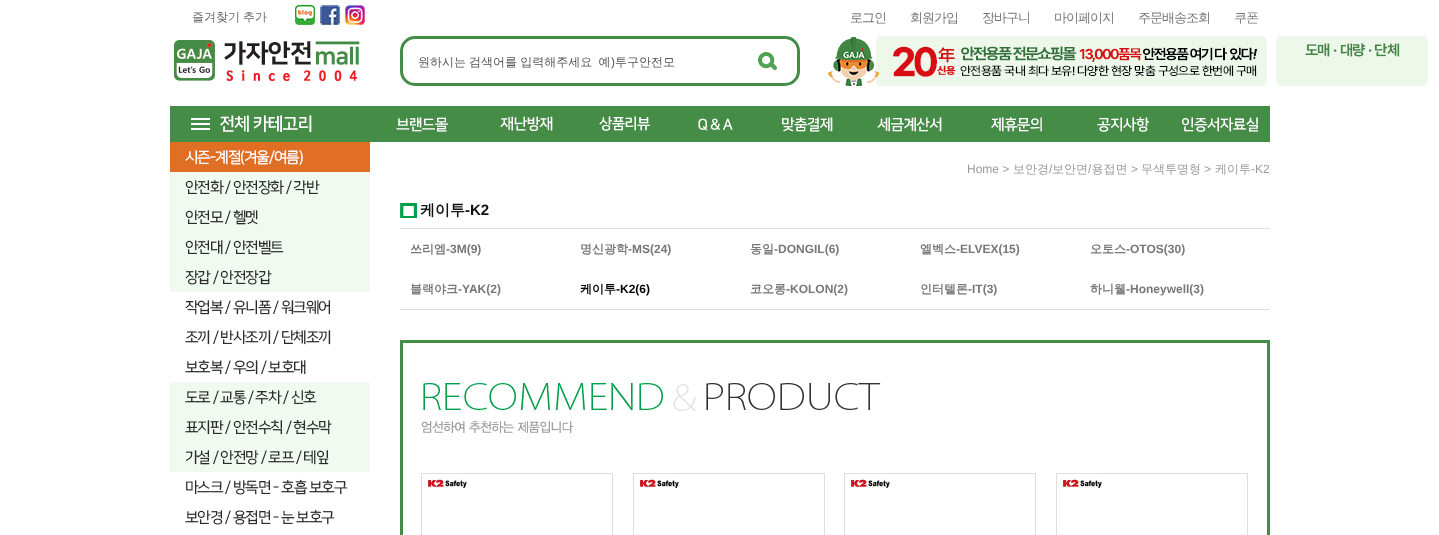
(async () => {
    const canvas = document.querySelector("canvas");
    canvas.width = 1439;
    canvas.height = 535;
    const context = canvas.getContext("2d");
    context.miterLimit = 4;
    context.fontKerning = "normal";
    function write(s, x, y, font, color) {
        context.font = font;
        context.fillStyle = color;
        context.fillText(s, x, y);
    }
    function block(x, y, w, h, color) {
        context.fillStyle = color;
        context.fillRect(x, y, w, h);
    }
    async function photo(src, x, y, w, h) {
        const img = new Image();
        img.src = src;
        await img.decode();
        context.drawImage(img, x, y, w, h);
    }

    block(0, 0, 1439, 535, "rgb(255, 255, 255)");
    context.wordSpacing = "-0.5px";
    write("즐겨찾기 추가", 192, 21, "500 12px WenQuanYi Zen Hei", "rgb(105, 105, 105)");
    await photo("media/1.png", 295, 5, 20, 20);
    await photo("media/2.png", 320, 5, 20, 20);
    await photo("media/3.png", 345, 5, 20, 20);
    context.letterSpacing = "-1px";
    context.wordSpacing = "0px";
    write("로그인", 850, 22, "500 13px WenQuanYi Zen Hei", "rgb(119, 119, 119)");
    write("회원가입", 910, 22, "500 13px WenQuanYi Zen Hei", "rgb(119, 119, 119)");
    write("장바구니", 982, 22, "500 13px WenQuanYi Zen Hei", "rgb(119, 119, 119)");
    write("마이페이지", 1054, 22, "500 13px WenQuanYi Zen Hei", "rgb(119, 119, 119)");
    write("주문배송조회", 1138, 22, "500 13px WenQuanYi Zen Hei", "rgb(119, 119, 119)");
    write("쿠폰", 1234, 22, "500 13px WenQuanYi Zen Hei", "rgb(119, 119, 119)");
    await photo("media/4.png", 174, 40, 186, 41);
    context.beginPath();
    context.roundRect(401.5, 37.5, 397, 47, 13.5);
    context.strokeStyle = "rgb(67, 141, 70)";
    context.lineWidth = 3;
    context.stroke();
    context.letterSpacing = "0px";
    context.wordSpacing = "-0.5px";
    write("원하시는 검색어를 입력해주세요  예", 418, 66, "500 12px WenQuanYi Zen Hei", "rgb(85, 85, 85)");
    context.wordSpacing = "0px";
    write(")", 611, 66, "12px Liberation Sans", "rgb(85, 85, 85)");
    write("투구안전모", 615, 66, "500 12px WenQuanYi Zen Hei", "rgb(85, 85, 85)");
    await photo("media/5.png", 758, 52, 19, 18);
    await photo("media/6.png", 828, 36, 439, 50);
    await photo("media/7.png", 1276, 36, 152, 50);
    await photo("media/8.png", 170, 106, 196, 36);
    await photo("media/9.png", 366, 106, 112, 36);
    await photo("media/10.png", 478, 106, 97, 36);
    await photo("media/11.png", 575, 106, 100, 36);
    await photo("media/12.png", 675, 106, 82, 36);
    await photo("media/13.png", 757, 106, 101, 36);
    await photo("media/14.png", 858, 106, 102, 36);
    await photo("media/15.png", 960, 106, 114, 36);
    await photo("media/16.png", 1074, 106, 98, 36);
    await photo("media/17.png", 1172, 106, 98, 36);
    await photo("media/18.png", 170, 142, 200, 30);
    await photo("media/19.png", 170, 172, 200, 30);
    await photo("media/20.png", 170, 202, 200, 30);
    await photo("media/21.png", 170, 232, 200, 30);
    await photo("media/22.png", 170, 262, 200, 30);
    await photo("media/23.png", 185, 300, 145, 15);
    await photo("media/24.png", 185, 330, 146, 15);
    await photo("media/25.png", 185, 360, 121, 15);
    await photo("media/26.png", 170, 382, 200, 30);
    await photo("media/27.png", 170, 412, 200, 30);
    await photo("media/28.png", 170, 442, 200, 30);
    await photo("media/29.png", 186, 479, 162, 16);
    await photo("media/30.png", 185, 510, 150, 15);
    write("Home >", 967, 173, "12px Liberation Sans", "rgb(153, 153, 153)");
    write("보안경", 1013, 173, "500 12px WenQuanYi Zen Hei", "rgb(153, 153, 153)");
    write("/", 1049, 173, "12px Liberation Sans", "rgb(153, 153, 153)");
    write("보안면 용접면", 1052, 173, "500 12px WenQuanYi Zen Hei", "rgb(153, 153, 153)");
    write("/", 1088, 173, "12px Liberation Sans", "rgb(153, 153, 153)");
    write(">", 1131, 173, "12px Liberation Sans", "rgb(153, 153, 153)");
    write("무색투명형", 1141, 173, "500 12px WenQuanYi Zen Hei", "rgb(153, 153, 153)");
    write(">", 1204, 173, "12px Liberation Sans", "rgb(153, 153, 153)");
    write("케이투", 1215, 173, "500 12px WenQuanYi Zen Hei", "rgb(153, 153, 153)");
    write("-K2", 1251, 173, "12px Liberation Sans", "rgb(153, 153, 153)");
    await photo("media/31.png", 400, 203, 17, 15);
    write("케이투", 420, 215, "bold 15px WenQuanYi Zen Hei", "rgb(17, 17, 17)");
    write("-K2", 465, 215, "bold 15px Liberation Sans", "rgb(17, 17, 17)");
    block(400, 228, 870, 1, "rgb(222, 222, 222)");
    block(400, 309, 870, 1, "rgb(222, 222, 222)");
    write("쓰리엠", 410, 253, "bold 12px WenQuanYi Zen Hei", "rgb(119, 119, 119)");
    write("-3M(9)", 446, 253, "bold 12px Liberation Sans", "rgb(119, 119, 119)");
    write("명신광학", 580, 253, "bold 12px WenQuanYi Zen Hei", "rgb(119, 119, 119)");
    write("-MS(24)", 628, 253, "bold 12px Liberation Sans", "rgb(119, 119, 119)");
    write("동일", 750, 253, "bold 12px WenQuanYi Zen Hei", "rgb(119, 119, 119)");
    write("-DONGIL(6)", 774, 253, "bold 12px Liberation Sans", "rgb(119, 119, 119)");
    write("엘벡스", 920, 253, "bold 12px WenQuanYi Zen Hei", "rgb(119, 119, 119)");
    write("-ELVEX(15)", 956, 253, "bold 12px Liberation Sans", "rgb(119, 119, 119)");
    write("오토스", 1090, 253, "bold 12px WenQuanYi Zen Hei", "rgb(119, 119, 119)");
    write("-OTOS(30)", 1126, 253, "bold 12px Liberation Sans", "rgb(119, 119, 119)");
    write("블랙야크", 410, 293, "bold 12px WenQuanYi Zen Hei", "rgb(119, 119, 119)");
    write("-YAK(2)", 458, 293, "bold 12px Liberation Sans", "rgb(119, 119, 119)");
    write("케이투", 580, 293, "bold 12px WenQuanYi Zen Hei", "rgb(0, 0, 0)");
    write("-K2(6)", 616, 293, "bold 12px Liberation Sans", "rgb(0, 0, 0)");
    write("코오롱", 750, 293, "bold 12px WenQuanYi Zen Hei", "rgb(119, 119, 119)");
    write("-KOLON(2)", 786, 293, "bold 12px Liberation Sans", "rgb(119, 119, 119)");
    write("인터텔론", 920, 293, "bold 12px WenQuanYi Zen Hei", "rgb(119, 119, 119)");
    write("-IT(3)", 968, 293, "bold 12px Liberation Sans", "rgb(119, 119, 119)");
    write("하니웰", 1090, 293, "bold 12px WenQuanYi Zen Hei", "rgb(119, 119, 119)");
    write("-Honeywell(3)", 1126, 293, "bold 12px Liberation Sans", "rgb(119, 119, 119)");
    context.strokeStyle = "rgb(69, 140, 70)";
    context.strokeRect(401.5, 341.5, 867, 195);
    await photo("media/32.png", 421, 383, 460, 50);
    context.strokeStyle = "rgb(222, 222, 222)";
    context.lineWidth = 1;
    context.strokeRect(421.5, 473.5, 191, 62);
    await photo("media/33.png", 427, 479, 40, 9);
    context.strokeRect(633.5, 473.5, 191, 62);
    await photo("media/34.png", 639, 479, 40, 9);
    context.strokeRect(844.5, 473.5, 191, 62);
    await photo("media/34.png", 850, 479, 40, 9);
    context.strokeRect(1056.5, 473.5, 191, 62);
    await photo("media/34.png", 1062, 479, 40, 9);
})();
